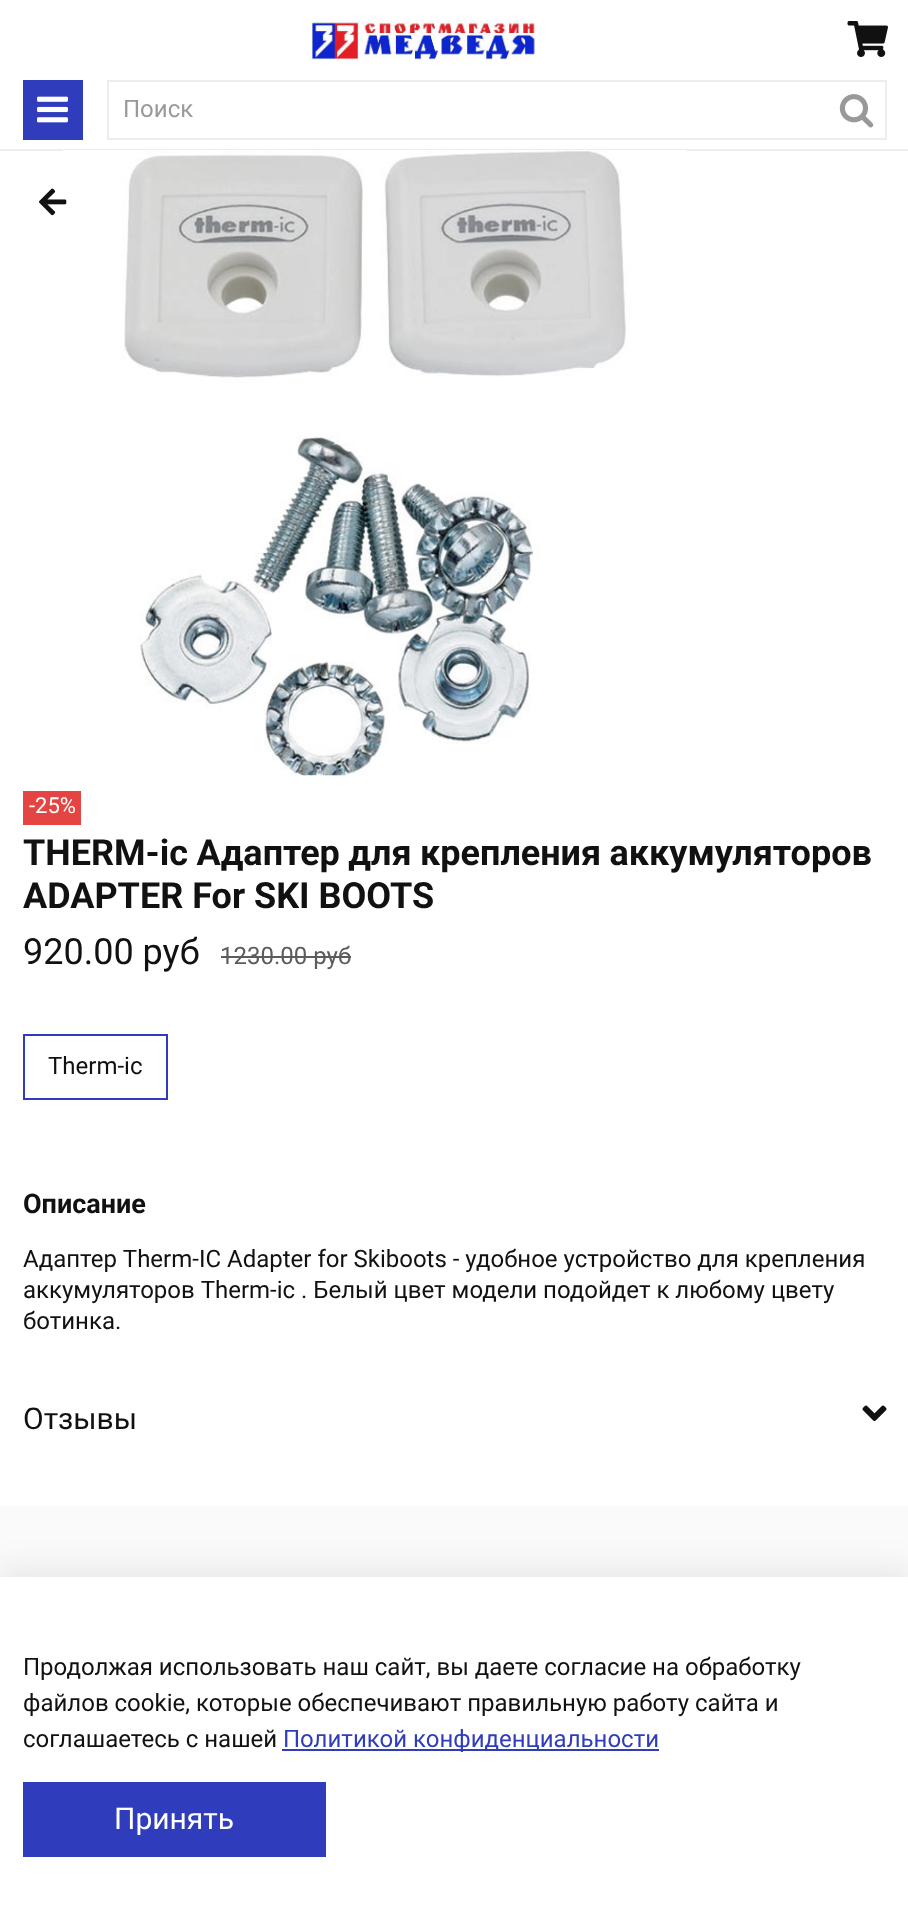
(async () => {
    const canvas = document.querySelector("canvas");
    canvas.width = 908;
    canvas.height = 1928;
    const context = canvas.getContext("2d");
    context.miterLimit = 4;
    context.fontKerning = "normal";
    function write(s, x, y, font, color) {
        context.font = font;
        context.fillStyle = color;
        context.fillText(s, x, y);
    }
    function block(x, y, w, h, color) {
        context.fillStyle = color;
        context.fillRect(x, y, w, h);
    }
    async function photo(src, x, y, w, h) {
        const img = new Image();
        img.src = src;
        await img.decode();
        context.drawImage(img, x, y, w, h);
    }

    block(0, 0, 908, 1928, "rgb(255, 255, 255)");
    block(0, 149, 908, 2, "rgb(237, 237, 237)");
    await photo("media/1.png", 310, 20, 226, 40);
    await photo("media/2.png", 847, 21, 41, 36);
    block(23, 80, 60, 60, "rgb(47, 61, 189)");
    await photo("media/3.png", 37, 96, 31, 27);
    block(107, 80, 780, 2, "rgb(237, 237, 237)");
    block(107, 138, 720, 2, "rgb(237, 237, 237)");
    block(107, 80, 2, 60, "rgb(237, 237, 237)");
    write("Поиск", 123, 117, "24px Roboto", "rgb(153, 153, 153)");
    block(885, 80, 2, 60, "rgb(237, 237, 237)");
    block(827, 138, 60, 2, "rgb(237, 237, 237)");
    await photo("media/4.png", 839, 94, 35, 34);
    await photo("media/6.png", 63, 150, 624, 626);
    await photo("media/5.png", 39, 188, 28, 28);
    block(23, 791, 58, 34, "rgb(228, 69, 66)");
    write("-25%", 29, 813, "22px Roboto", "rgb(255, 255, 255)");
    context.wordSpacing = "-0.5px";
    write("THERM-ic Адаптер для крепления аккумуляторов", 23, 865, "bold 36px Roboto", "rgb(17, 17, 17)");
    context.wordSpacing = "0px";
    write("ADAPTER For SKI BOOTS", 23, 908, "bold 36px Roboto", "rgb(17, 17, 17)");
    write("920.00 руб", 23, 964, "36px Roboto", "rgb(17, 17, 17)");
    write("1230.00 руб", 220, 964, "24px Roboto", "rgb(92, 92, 92)");
    block(221, 956, 130, 2, "rgb(92, 92, 92)");
    context.strokeStyle = "rgb(47, 61, 189)";
    context.lineWidth = 2;
    context.strokeRect(24, 1035, 143, 64);
    write("Therm-ic", 48, 1074, "24px Roboto", "rgb(17, 17, 17)");
    write("Описание", 23, 1213, "bold 27px Roboto", "rgb(17, 17, 17)");
    write("Адаптер Therm-IC Adapter for Skiboots - удобное устройство для крепления", 23, 1267, "24px Roboto", "rgb(17, 17, 17)");
    write("аккумуляторов Therm-ic . Белый цвет модели подойдет к любому цвету", 23, 1298, "24px Roboto", "rgb(17, 17, 17)");
    write("ботинка.", 23, 1329, "24px Roboto", "rgb(17, 17, 17)");
    write("Отзывы", 23, 1429, "30px Roboto", "rgb(17, 17, 17)");
    await photo("media/7.png", 862, 1405, 25, 16);
    block(0, 1506, 908, 71, "rgb(250, 250, 250)");
    context.fillStyle = "rgba(0, 0, 0, 0.09)";
    context.filter = "blur(17px)";
    context.beginPath();
    context.rect(-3, 1572, 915, 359);
    context.fill();
    context.filter = "none";
    block(0, 1577, 908, 351, "rgb(255, 255, 255)");
    write("Продолжая использовать наш сайт, вы даете согласие на обработку", 23, 1675, "24px Roboto", "rgb(17, 17, 17)");
    write("файлов cookie, которые обеспечивают правильную работу сайта и", 23, 1711, "24px Roboto", "rgb(17, 17, 17)");
    write("соглашаетесь с нашей", 23, 1747, "24px Roboto", "rgb(17, 17, 17)");
    block(282, 1749, 377, 2, "rgb(47, 61, 189)");
    write("Политикой конфиденциальности", 283, 1747, "24px Roboto", "rgb(47, 61, 189)");
    block(23, 1782, 303, 75, "rgb(47, 61, 189)");
    write("Принять", 114, 1829, "30px Roboto", "rgb(255, 255, 255)");
})();
